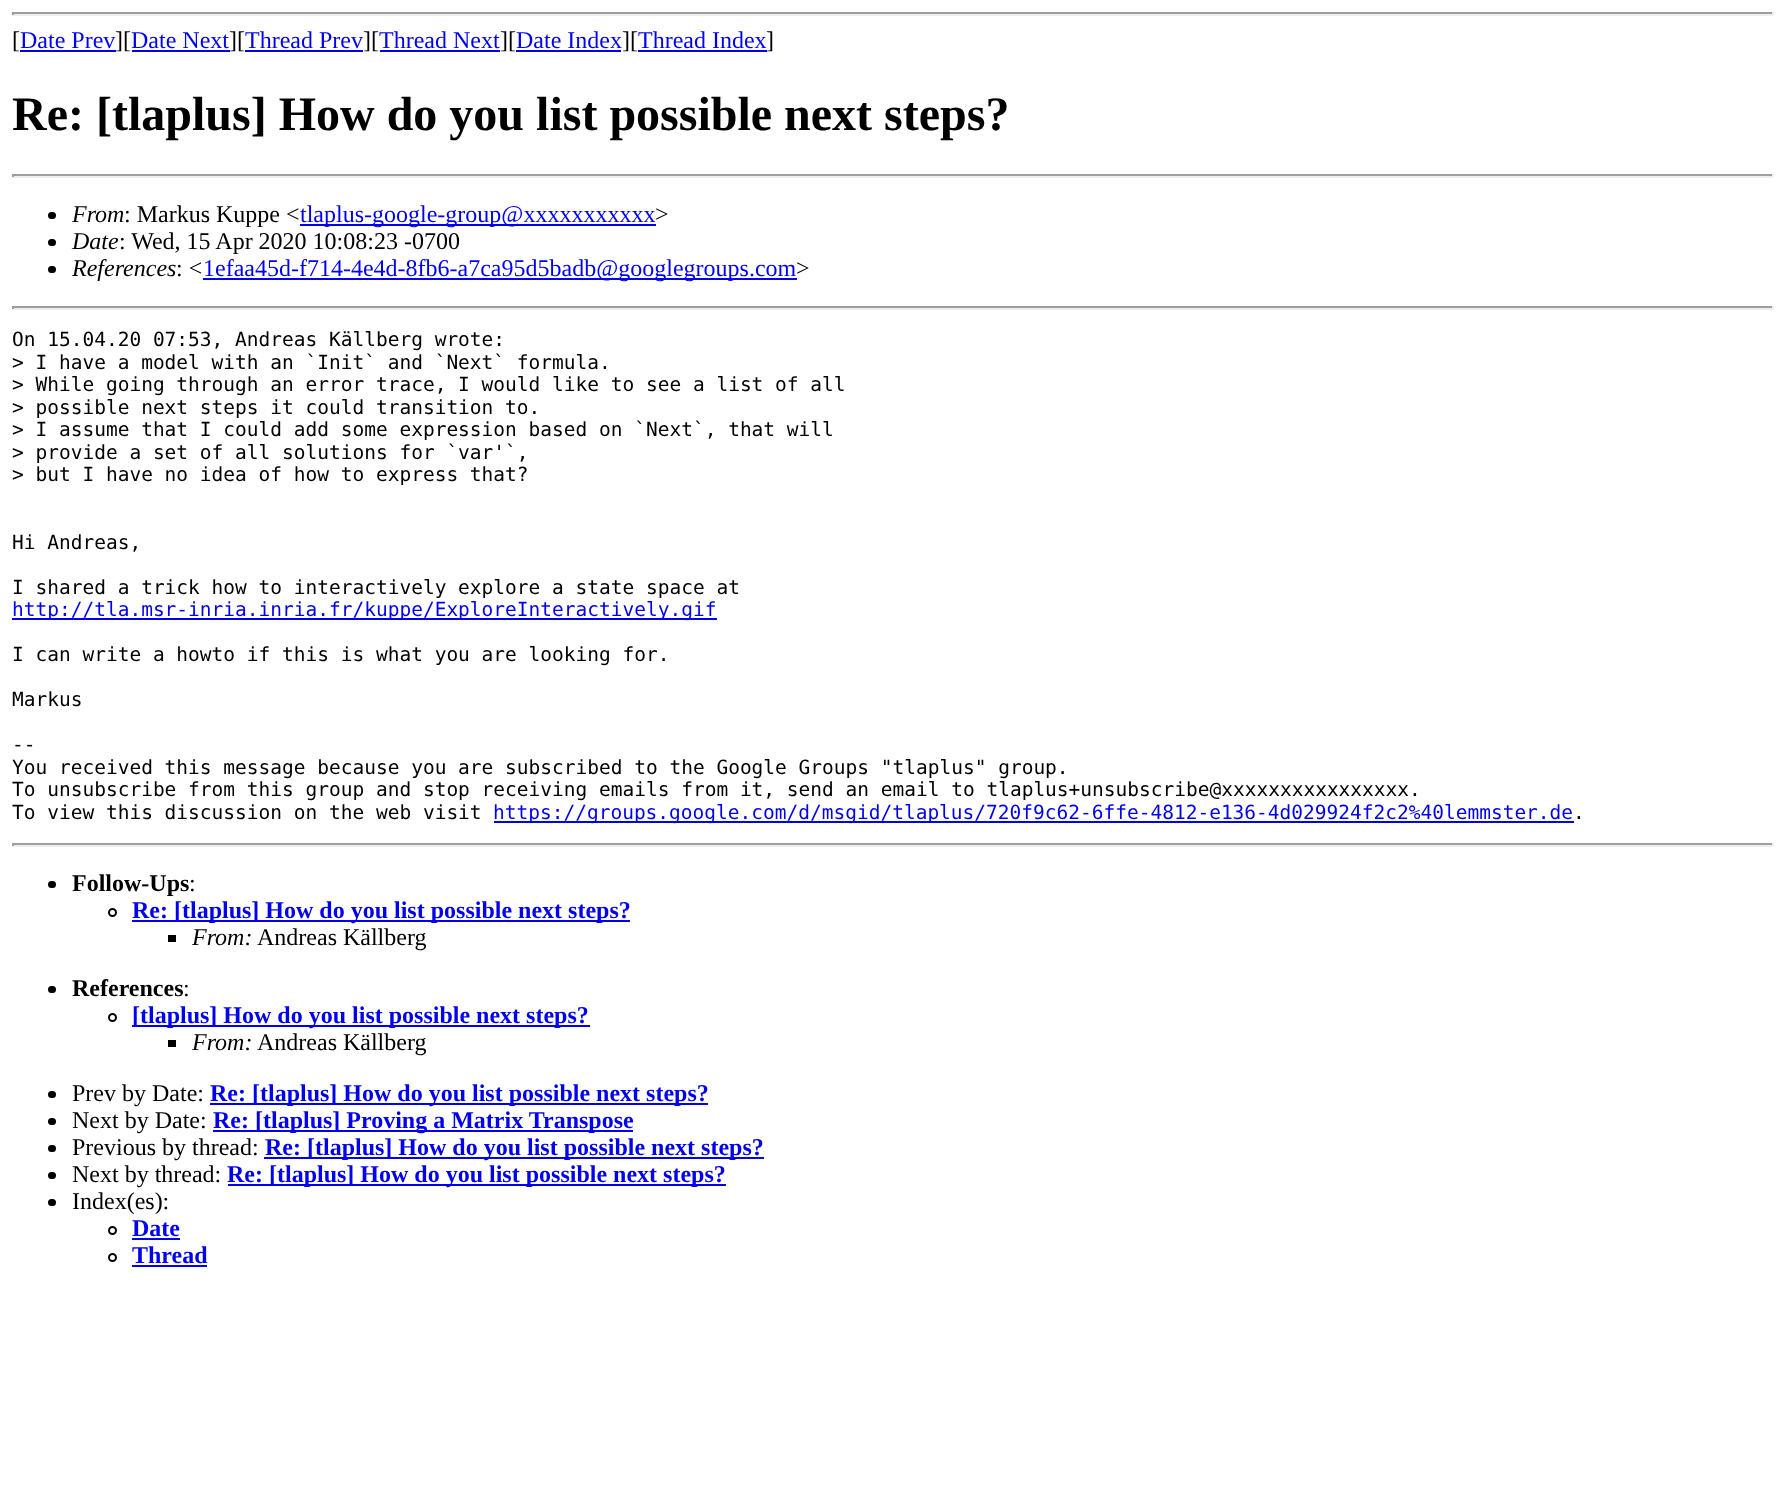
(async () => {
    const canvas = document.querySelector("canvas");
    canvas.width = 1785;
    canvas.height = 1497;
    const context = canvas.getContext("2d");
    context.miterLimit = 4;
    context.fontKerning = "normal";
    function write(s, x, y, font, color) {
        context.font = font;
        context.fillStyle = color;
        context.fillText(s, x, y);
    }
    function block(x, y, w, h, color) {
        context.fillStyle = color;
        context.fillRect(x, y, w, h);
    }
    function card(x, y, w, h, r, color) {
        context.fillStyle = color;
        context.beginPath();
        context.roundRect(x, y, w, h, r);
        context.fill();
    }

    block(0, 0, 1785, 1497, "rgb(255, 255, 255)");
    block(12, 12, 1761, 2, "rgb(159, 159, 159)");
    block(1772, 12, 2, 3, "rgb(238, 238, 238)");
    block(12, 14, 1761, 2, "rgb(238, 238, 238)");
    block(12, 12, 2, 3, "rgb(159, 159, 159)");
    write("[", 12, 48, "24px Liberation Serif", "rgb(0, 0, 0)");
    write("Date Prev", 20, 48, "24px Liberation Serif", "rgb(0, 0, 238)");
    block(20, 50, 96, 2, "rgb(0, 0, 238)");
    write("][", 115, 48, "24px Liberation Serif", "rgb(0, 0, 0)");
    write("Date Next", 131, 48, "24px Liberation Serif", "rgb(0, 0, 238)");
    block(132, 50, 98, 2, "rgb(0, 0, 238)");
    write("][", 229, 48, "24px Liberation Serif", "rgb(0, 0, 0)");
    write("Thread Prev", 245, 48, "24px Liberation Serif", "rgb(0, 0, 238)");
    block(245, 50, 118, 2, "rgb(0, 0, 238)");
    write("][", 363, 48, "24px Liberation Serif", "rgb(0, 0, 0)");
    write("Thread Next", 379, 48, "24px Liberation Serif", "rgb(0, 0, 238)");
    block(380, 50, 120, 2, "rgb(0, 0, 238)");
    write("][", 500, 48, "24px Liberation Serif", "rgb(0, 0, 0)");
    write("Date Index", 516, 48, "24px Liberation Serif", "rgb(0, 0, 238)");
    block(516, 50, 105, 2, "rgb(0, 0, 238)");
    write("][", 622, 48, "24px Liberation Serif", "rgb(0, 0, 0)");
    write("Thread Index", 638, 48, "24px Liberation Serif", "rgb(0, 0, 238)");
    block(638, 50, 129, 2, "rgb(0, 0, 238)");
    write("]", 766, 48, "24px Liberation Serif", "rgb(0, 0, 0)");
    write("Re: [tlaplus] How do you list possible next steps?", 12, 130, "bold 48px Liberation Serif", "rgb(0, 0, 0)");
    block(12, 174, 1761, 2, "rgb(159, 159, 159)");
    block(1772, 174, 2, 3, "rgb(238, 238, 238)");
    block(12, 176, 1761, 2, "rgb(238, 238, 238)");
    block(12, 174, 2, 3, "rgb(159, 159, 159)");
    card(48, 212, 8, 7, 3.5, "rgb(0, 0, 0)");
    write("From", 72, 222, "italic 24px Liberation Serif", "rgb(0, 0, 0)");
    write(": Markus Kuppe <", 124, 222, "24px Liberation Serif", "rgb(0, 0, 0)");
    block(300, 224, 356, 2, "rgb(0, 0, 238)");
    write("tlaplus-google-group@xxxxxxxxxxx", 300, 222, "24px Liberation Serif", "rgb(0, 0, 238)");
    write(">", 655, 222, "24px Liberation Serif", "rgb(0, 0, 0)");
    card(48, 239, 8, 7, 3.5, "rgb(0, 0, 0)");
    write("Date", 72, 249, "italic 24px Liberation Serif", "rgb(0, 0, 0)");
    write(": Wed, 15 Apr 2020 10:08:23 -0700", 119, 249, "24px Liberation Serif", "rgb(0, 0, 0)");
    card(48, 266, 8, 7, 3.5, "rgb(0, 0, 0)");
    write("References", 72, 276, "italic 24px Liberation Serif", "rgb(0, 0, 0)");
    write(": <", 176, 276, "24px Liberation Serif", "rgb(0, 0, 0)");
    block(203, 278, 594, 2, "rgb(0, 0, 238)");
    write("1efaa45d-f714-4e4d-8fb6-a7ca95d5badb@googlegroups.com", 203, 276, "24px Liberation Serif", "rgb(0, 0, 238)");
    write(">", 796, 276, "24px Liberation Serif", "rgb(0, 0, 0)");
    block(12, 306, 1761, 2, "rgb(159, 159, 159)");
    block(1772, 306, 2, 3, "rgb(238, 238, 238)");
    block(12, 308, 1761, 2, "rgb(238, 238, 238)");
    block(12, 306, 2, 3, "rgb(159, 159, 159)");
    write("On 15.04.20 07:53, Andreas Källberg wrote:", 12, 346, "19.5px DejaVu Sans Mono", "rgb(0, 0, 0)");
    write("> I have a model with an `Init` and `Next` formula.", 12, 369, "19.5px DejaVu Sans Mono", "rgb(0, 0, 0)");
    write("> While going through an error trace, I would like to see a list of all", 12, 391, "19.5px DejaVu Sans Mono", "rgb(0, 0, 0)");
    write("> possible next steps it could transition to.", 12, 414, "19.5px DejaVu Sans Mono", "rgb(0, 0, 0)");
    write("> I assume that I could add some expression based on `Next`, that will", 12, 436, "19.5px DejaVu Sans Mono", "rgb(0, 0, 0)");
    write("> provide a set of all solutions for `var'`,", 12, 459, "19.5px DejaVu Sans Mono", "rgb(0, 0, 0)");
    write("> but I have no idea of how to express that?", 12, 481, "19.5px DejaVu Sans Mono", "rgb(0, 0, 0)");
    write("Hi Andreas,", 12, 549, "19.5px DejaVu Sans Mono", "rgb(0, 0, 0)");
    write("I shared a trick how to interactively explore a state space at", 12, 594, "19.5px DejaVu Sans Mono", "rgb(0, 0, 0)");
    block(12, 618, 705, 2, "rgb(0, 0, 238)");
    write("http://tla.msr-inria.inria.fr/kuppe/ExploreInteractively.gif", 12, 616, "19.5px DejaVu Sans Mono", "rgb(0, 0, 238)");
    write("I can write a howto if this is what you are looking for.", 12, 661, "19.5px DejaVu Sans Mono", "rgb(0, 0, 0)");
    write("Markus", 12, 706, "19.5px DejaVu Sans Mono", "rgb(0, 0, 0)");
    write("--", 12, 751, "19.5px DejaVu Sans Mono", "rgb(0, 0, 0)");
    write("You received this message because you are subscribed to the Google Groups \"tlaplus\" group.", 12, 774, "19.5px DejaVu Sans Mono", "rgb(0, 0, 0)");
    write("To unsubscribe from this group and stop receiving emails from it, send an email to tlaplus+unsubscribe@xxxxxxxxxxxxxxxx.", 12, 796, "19.5px DejaVu Sans Mono", "rgb(0, 0, 0)");
    write("To view this discussion on the web visit", 12, 819, "19.5px DejaVu Sans Mono", "rgb(0, 0, 0)");
    block(494, 821, 1080, 2, "rgb(0, 0, 238)");
    write("https://groups.google.com/d/msgid/tlaplus/720f9c62-6ffe-4812-e136-4d029924f2c2%40lemmster.de", 493, 819, "19.5px DejaVu Sans Mono", "rgb(0, 0, 238)");
    write(".", 1573, 819, "19.5px DejaVu Sans Mono", "rgb(0, 0, 0)");
    block(12, 843, 1761, 2, "rgb(159, 159, 159)");
    block(1772, 843, 2, 3, "rgb(238, 238, 238)");
    block(12, 845, 1761, 2, "rgb(238, 238, 238)");
    block(12, 843, 2, 3, "rgb(159, 159, 159)");
    card(48, 881, 8, 7, 3.5, "rgb(0, 0, 0)");
    write("Follow-Ups", 72, 891, "bold 24px Liberation Serif", "rgb(0, 0, 0)");
    write(":", 189, 891, "24px Liberation Serif", "rgb(0, 0, 0)");
    context.beginPath();
    context.arc(112.5, 912.5, 3.5, 0, Math.PI * 2);
    context.strokeStyle = "rgb(0, 0, 0)";
    context.lineWidth = 2;
    context.stroke();
    block(132, 920, 498, 2, "rgb(0, 0, 238)");
    write("Re: [tlaplus] How do you list possible next steps?", 132, 918, "bold 24px Liberation Serif", "rgb(0, 0, 238)");
    block(168, 935, 8, 7, "rgb(0, 0, 0)");
    write("From:", 192, 945, "italic 24px Liberation Serif", "rgb(0, 0, 0)");
    write("Andreas Källberg", 257, 945, "24px Liberation Serif", "rgb(0, 0, 0)");
    card(48, 986, 8, 7, 3.5, "rgb(0, 0, 0)");
    write("References", 72, 996, "bold 24px Liberation Serif", "rgb(0, 0, 0)");
    write(":", 183, 996, "24px Liberation Serif", "rgb(0, 0, 0)");
    context.beginPath();
    context.arc(112.5, 1017.5, 3.5, 0, Math.PI * 2);
    context.stroke();
    block(132, 1025, 458, 2, "rgb(0, 0, 238)");
    write("[tlaplus] How do you list possible next steps?", 132, 1023, "bold 24px Liberation Serif", "rgb(0, 0, 238)");
    block(168, 1040, 8, 7, "rgb(0, 0, 0)");
    write("From:", 192, 1050, "italic 24px Liberation Serif", "rgb(0, 0, 0)");
    write("Andreas Källberg", 257, 1050, "24px Liberation Serif", "rgb(0, 0, 0)");
    card(48, 1091, 8, 7, 3.5, "rgb(0, 0, 0)");
    write("Prev by Date:", 72, 1101, "24px Liberation Serif", "rgb(0, 0, 0)");
    block(210, 1103, 498, 2, "rgb(0, 0, 238)");
    write("Re: [tlaplus] How do you list possible next steps?", 210, 1101, "bold 24px Liberation Serif", "rgb(0, 0, 238)");
    card(48, 1118, 8, 7, 3.5, "rgb(0, 0, 0)");
    write("Next by Date:", 72, 1128, "24px Liberation Serif", "rgb(0, 0, 0)");
    block(213, 1130, 420, 2, "rgb(0, 0, 238)");
    write("Re: [tlaplus] Proving a Matrix Transpose", 213, 1128, "bold 24px Liberation Serif", "rgb(0, 0, 238)");
    card(48, 1145, 8, 7, 3.5, "rgb(0, 0, 0)");
    write("Previous by thread:", 72, 1155, "24px Liberation Serif", "rgb(0, 0, 0)");
    block(264, 1157, 500, 2, "rgb(0, 0, 238)");
    write("Re: [tlaplus] How do you list possible next steps?", 265, 1155, "bold 24px Liberation Serif", "rgb(0, 0, 238)");
    card(48, 1172, 8, 7, 3.5, "rgb(0, 0, 0)");
    write("Next by thread:", 72, 1182, "24px Liberation Serif", "rgb(0, 0, 0)");
    block(228, 1184, 498, 2, "rgb(0, 0, 238)");
    write("Re: [tlaplus] How do you list possible next steps?", 227, 1182, "bold 24px Liberation Serif", "rgb(0, 0, 238)");
    card(48, 1199, 8, 7, 3.5, "rgb(0, 0, 0)");
    write("Index(es):", 72, 1209, "24px Liberation Serif", "rgb(0, 0, 0)");
    context.beginPath();
    context.arc(112.5, 1230.5, 3.5, 0, Math.PI * 2);
    context.stroke();
    write("Date", 132, 1236, "bold 24px Liberation Serif", "rgb(0, 0, 238)");
    block(132, 1238, 48, 2, "rgb(0, 0, 238)");
    context.beginPath();
    context.arc(112.5, 1257.5, 3.5, 0, Math.PI * 2);
    context.stroke();
    write("Thread", 132, 1263, "bold 24px Liberation Serif", "rgb(0, 0, 238)");
    block(132, 1265, 75, 2, "rgb(0, 0, 238)");
})();
